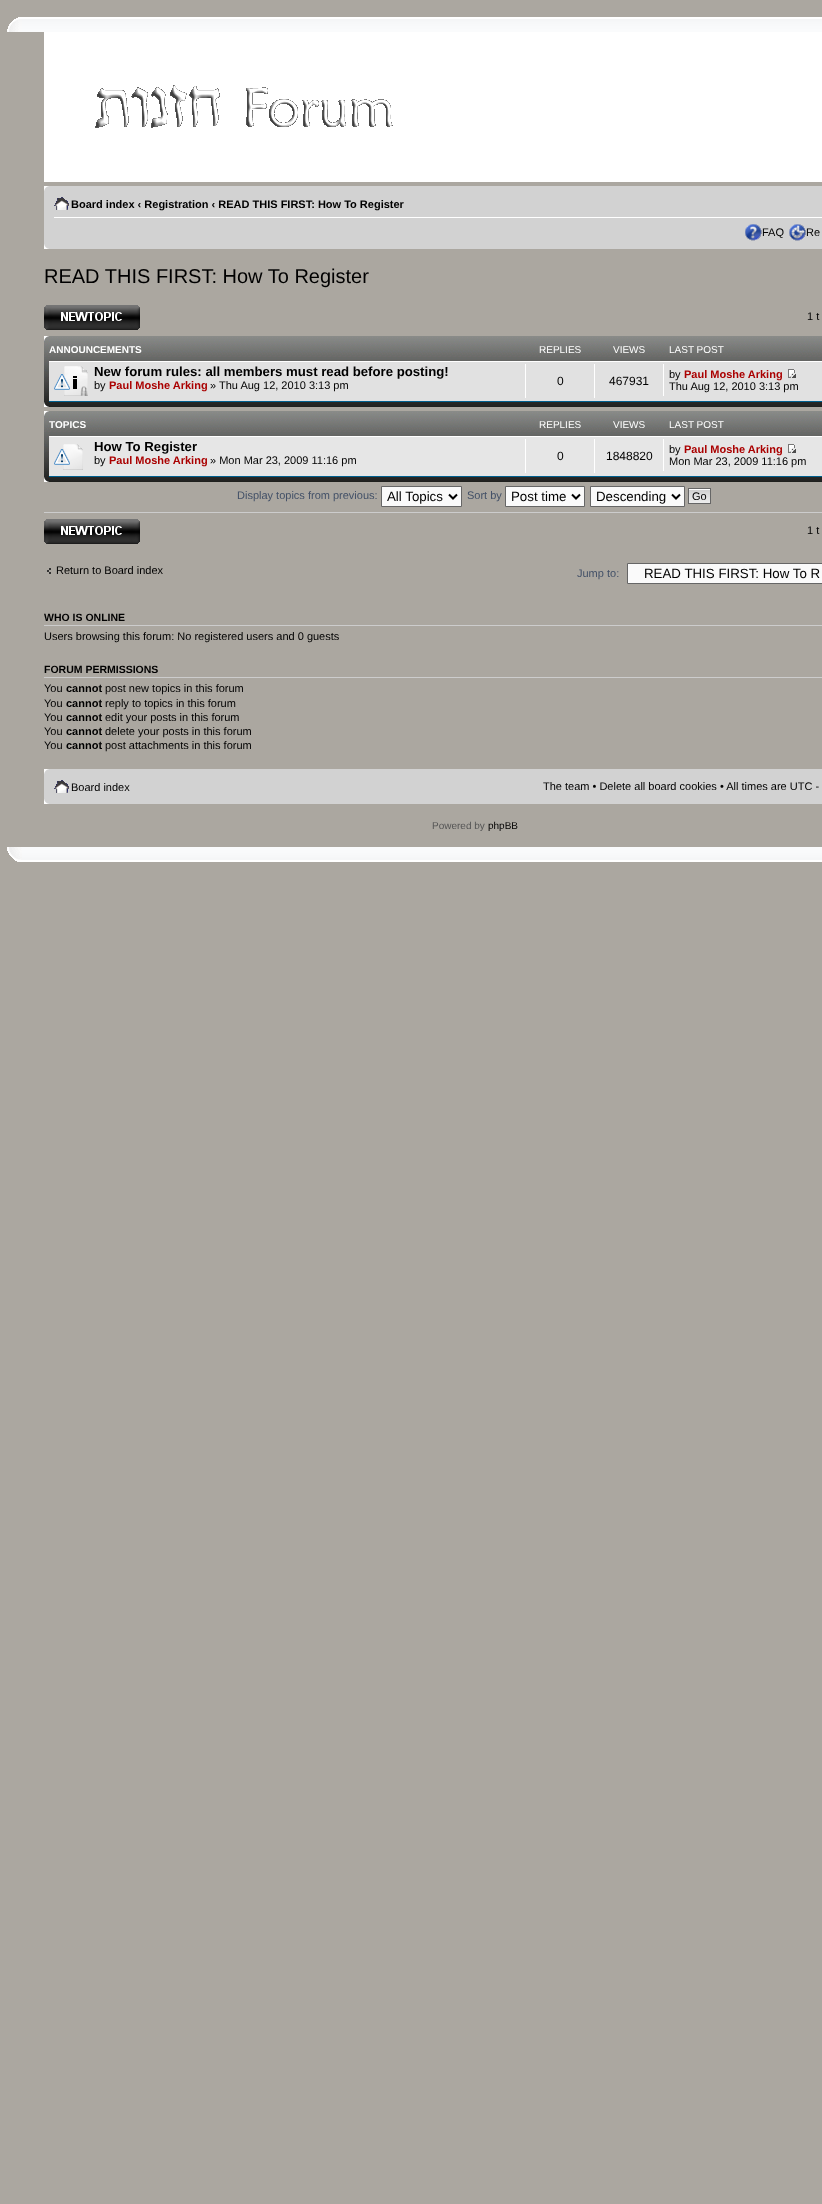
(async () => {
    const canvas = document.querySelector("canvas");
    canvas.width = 822;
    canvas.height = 2204;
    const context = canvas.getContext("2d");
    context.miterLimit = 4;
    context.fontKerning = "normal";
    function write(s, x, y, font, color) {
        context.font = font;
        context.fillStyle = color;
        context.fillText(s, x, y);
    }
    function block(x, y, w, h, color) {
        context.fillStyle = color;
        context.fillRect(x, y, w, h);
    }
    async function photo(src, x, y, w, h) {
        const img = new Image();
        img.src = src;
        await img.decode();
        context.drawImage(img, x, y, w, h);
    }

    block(0, 0, 822, 2204, "rgb(171, 167, 160)");
    await photo("media/1.png", 7, 17, 15, 15);
    await photo("media/2.png", 22, 17, 800, 15);
    block(44, 32, 778, 150, "rgb(255, 255, 255)");
    await photo("media/3.png", 95, 85, 298, 43);
    block(44, 186, 778, 63, "rgb(210, 210, 210)");
    await photo("media/4.png", 44, 186, 5, 5);
    block(54, 217, 768, 1, "rgb(255, 255, 255)");
    await photo("media/5.png", 54, 197, 15, 13);
    write("Board index ‹ Registration ‹ READ THIS FIRST: How To Register", 71, 208, "bold 11px Liberation Sans", "rgb(0, 0, 0)");
    await photo("media/6.png", 745, 224, 17, 17);
    write("FAQ", 762, 236, "11px Liberation Sans", "rgb(0, 0, 0)");
    await photo("media/7.png", 789, 224, 17, 17);
    write("Re", 806, 236, "11px Liberation Sans", "rgb(0, 0, 0)");
    await photo("media/8.png", 44, 244, 5, 5);
    write("READ THIS FIRST: How To Register", 44, 283, "20px Liberation Sans", "rgb(0, 0, 0)");
    await photo("media/9.png", 44, 305, 96, 25);
    write("1 t", 807, 320, "11px Liberation Sans", "rgb(0, 0, 0)");
    await photo("media/10.png", 44, 336, 778, 71);
    await photo("media/11.png", 44, 336, 5, 5);
    write("ANNOUNCEMENTS", 49, 353, "bold 10px Liberation Sans", "rgb(255, 255, 255)");
    write("REPLIES", 539, 353, "10px Liberation Sans", "rgb(255, 255, 255)");
    write("VIEWS", 613, 353, "10px Liberation Sans", "rgb(255, 255, 255)");
    write("LAST POST", 669, 353, "10px Liberation Sans", "rgb(255, 255, 255)");
    block(49, 362, 773, 39, "rgb(225, 225, 225)");
    block(49, 361, 773, 1, "rgb(255, 255, 255)");
    block(49, 401, 773, 1, "rgb(0, 96, 143)");
    await photo("media/12.png", 64, 366, 24, 30);
    await photo("media/13.png", 54, 374, 16, 16);
    write("New forum rules: all members must read before posting!", 94, 376, "bold 13.2px Liberation Sans", "rgb(0, 0, 0)");
    write("by", 94, 389, "11px Liberation Sans", "rgb(0, 0, 0)");
    write("Paul Moshe Arking", 109, 389, "bold 11px Liberation Sans", "rgb(170, 0, 0)");
    write("» Thu Aug 12, 2010 3:13 pm", 210, 389, "11px Liberation Sans", "rgb(0, 0, 0)");
    block(525, 364, 1, 34, "rgb(255, 255, 255)");
    write("0", 557, 385, "12px Liberation Sans", "rgb(0, 0, 0)");
    block(594, 364, 1, 34, "rgb(255, 255, 255)");
    write("467931", 609, 385, "12px Liberation Sans", "rgb(0, 0, 0)");
    block(663, 364, 1, 32, "rgb(255, 255, 255)");
    write("by", 669, 378, "11px Liberation Sans", "rgb(0, 0, 0)");
    write("Paul Moshe Arking", 684, 378, "bold 11px Liberation Sans", "rgb(170, 0, 0)");
    await photo("media/14.png", 788, 369, 8, 9);
    write("Thu Aug 12, 2010 3:13 pm", 669, 390, "11px Liberation Sans", "rgb(0, 0, 0)");
    await photo("media/15.png", 44, 402, 5, 5);
    await photo("media/10.png", 44, 411, 778, 71);
    await photo("media/11.png", 44, 411, 5, 5);
    write("TOPICS", 49, 428, "bold 10px Liberation Sans", "rgb(255, 255, 255)");
    write("REPLIES", 539, 428, "10px Liberation Sans", "rgb(255, 255, 255)");
    write("VIEWS", 613, 428, "10px Liberation Sans", "rgb(255, 255, 255)");
    write("LAST POST", 669, 428, "10px Liberation Sans", "rgb(255, 255, 255)");
    block(49, 437, 773, 39, "rgb(230, 230, 230)");
    block(49, 436, 773, 1, "rgb(255, 255, 255)");
    block(49, 476, 773, 1, "rgb(0, 96, 143)");
    await photo("media/16.png", 63, 444, 20, 26);
    await photo("media/17.png", 54, 449, 16, 16);
    write("How To Register", 94, 451, "bold 13.2px Liberation Sans", "rgb(0, 0, 0)");
    write("by", 94, 464, "11px Liberation Sans", "rgb(0, 0, 0)");
    write("Paul Moshe Arking", 109, 464, "bold 11px Liberation Sans", "rgb(170, 0, 0)");
    write("» Mon Mar 23, 2009 11:16 pm", 210, 464, "11px Liberation Sans", "rgb(0, 0, 0)");
    block(525, 439, 1, 34, "rgb(255, 255, 255)");
    write("0", 557, 460, "12px Liberation Sans", "rgb(0, 0, 0)");
    block(594, 439, 1, 34, "rgb(255, 255, 255)");
    write("1848820", 606, 460, "12px Liberation Sans", "rgb(0, 0, 0)");
    block(663, 439, 1, 32, "rgb(255, 255, 255)");
    write("by", 669, 453, "11px Liberation Sans", "rgb(0, 0, 0)");
    write("Paul Moshe Arking", 684, 453, "bold 11px Liberation Sans", "rgb(170, 0, 0)");
    await photo("media/18.png", 788, 444, 8, 9);
    write("Mon Mar 23, 2009 11:16 pm", 669, 465, "11px Liberation Sans", "rgb(0, 0, 0)");
    await photo("media/15.png", 44, 477, 5, 5);
    write("Display topics from previous:", 237, 499, "11px Liberation Sans", "rgb(66, 80, 103)");
    context.fillStyle = "rgb(250, 250, 250)";
    context.beginPath();
    context.rect(381.5, 486.5, 80, 20);
    context.fill();
    context.strokeStyle = "rgb(102, 102, 102)";
    context.stroke();
    context.beginPath();
    context.moveTo(449, 494.5);
    context.lineTo(453, 498.5);
    context.lineTo(457, 494.5);
    context.strokeStyle = "rgb(0, 0, 0)";
    context.lineWidth = 2;
    context.stroke();
    write("All Topics", 387, 501, "13.3px Liberation Sans", "rgb(0, 0, 0)");
    write("Sort by", 467, 499, "11px Liberation Sans", "rgb(66, 80, 103)");
    context.fillStyle = "rgb(250, 250, 250)";
    context.beginPath();
    context.rect(505.5, 486.5, 79, 20);
    context.fill();
    context.strokeStyle = "rgb(102, 102, 102)";
    context.lineWidth = 1;
    context.stroke();
    context.beginPath();
    context.moveTo(572, 494.5);
    context.lineTo(576, 498.5);
    context.lineTo(580, 494.5);
    context.strokeStyle = "rgb(0, 0, 0)";
    context.lineWidth = 2;
    context.stroke();
    write("Post time", 511, 501, "13.3px Liberation Sans", "rgb(0, 0, 0)");
    context.fillStyle = "rgb(250, 250, 250)";
    context.beginPath();
    context.rect(590.5, 486.5, 94, 20);
    context.fill();
    context.strokeStyle = "rgb(102, 102, 102)";
    context.lineWidth = 1;
    context.stroke();
    context.beginPath();
    context.moveTo(672, 494.5);
    context.lineTo(676, 498.5);
    context.lineTo(680, 494.5);
    context.strokeStyle = "rgb(0, 0, 0)";
    context.lineWidth = 2;
    context.stroke();
    write("Descending", 596, 501, "13.3px Liberation Sans", "rgb(0, 0, 0)");
    await photo("media/19.png", 689, 489, 21, 14);
    context.strokeStyle = "rgb(102, 102, 102)";
    context.lineWidth = 1;
    context.strokeRect(688.5, 488.5, 22, 15);
    write("Go", 692, 500, "11px Liberation Sans", "rgb(0, 0, 0)");
    block(44, 512, 778, 1, "rgb(204, 204, 204)");
    await photo("media/9.png", 44, 519, 96, 25);
    write("1 t", 807, 534, "11px Liberation Sans", "rgb(0, 0, 0)");
    await photo("media/20.png", 47, 568, 4, 6);
    write("Return to Board index", 56, 574, "11px Liberation Sans", "rgb(0, 0, 0)");
    write("Jump to:", 577, 577, "11px Liberation Sans", "rgb(66, 80, 103)");
    context.fillStyle = "rgb(250, 250, 250)";
    context.beginPath();
    context.rect(627.5, 563.5, 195, 20);
    context.fill();
    context.stroke();
    write("READ THIS FIRST: How To R", 644, 578, "13.3px Liberation Sans", "rgb(0, 0, 0)");
    block(44, 625, 778, 1, "rgb(204, 204, 204)");
    write("WHO IS ONLINE", 44, 621, "bold 10.5px Liberation Sans", "rgb(0, 0, 0)");
    write("Users browsing this forum: No registered users and 0 guests", 44, 640, "11px Liberation Sans", "rgb(0, 0, 0)");
    block(44, 677, 778, 1, "rgb(204, 204, 204)");
    write("FORUM PERMISSIONS", 44, 673, "bold 10.5px Liberation Sans", "rgb(0, 0, 0)");
    write("You", 44, 692, "11px Liberation Sans", "rgb(0, 0, 0)");
    write("cannot", 66, 692, "bold 11px Liberation Sans", "rgb(0, 0, 0)");
    write("post new topics in this forum", 105, 692, "11px Liberation Sans", "rgb(0, 0, 0)");
    write("You", 44, 707, "11px Liberation Sans", "rgb(0, 0, 0)");
    write("cannot", 66, 707, "bold 11px Liberation Sans", "rgb(0, 0, 0)");
    write("reply to topics in this forum", 105, 707, "11px Liberation Sans", "rgb(0, 0, 0)");
    write("You", 44, 721, "11px Liberation Sans", "rgb(0, 0, 0)");
    write("cannot", 66, 721, "bold 11px Liberation Sans", "rgb(0, 0, 0)");
    write("edit your posts in this forum", 105, 721, "11px Liberation Sans", "rgb(0, 0, 0)");
    write("You", 44, 735, "11px Liberation Sans", "rgb(0, 0, 0)");
    write("cannot", 66, 735, "bold 11px Liberation Sans", "rgb(0, 0, 0)");
    write("delete your posts in this forum", 105, 735, "11px Liberation Sans", "rgb(0, 0, 0)");
    write("You", 44, 749, "11px Liberation Sans", "rgb(0, 0, 0)");
    write("cannot", 66, 749, "bold 11px Liberation Sans", "rgb(0, 0, 0)");
    write("post attachments in this forum", 105, 749, "11px Liberation Sans", "rgb(0, 0, 0)");
    block(44, 769, 778, 35, "rgb(210, 210, 210)");
    await photo("media/4.png", 44, 769, 5, 5);
    await photo("media/5.png", 54, 780, 15, 13);
    write("Board index", 71, 791, "11px Liberation Sans", "rgb(0, 0, 0)");
    write("The team • Delete all board cookies • All times are UTC -", 543, 790, "11px Liberation Sans", "rgb(0, 0, 0)");
    await photo("media/8.png", 44, 799, 5, 5);
    write("Powered by", 432, 829, "10px Liberation Sans", "rgb(85, 85, 85)");
    write("phpBB", 488, 829, "10px Liberation Sans", "rgb(0, 0, 0)");
    await photo("media/21.png", 7, 847, 15, 15);
    await photo("media/22.png", 22, 847, 800, 15);
})();
